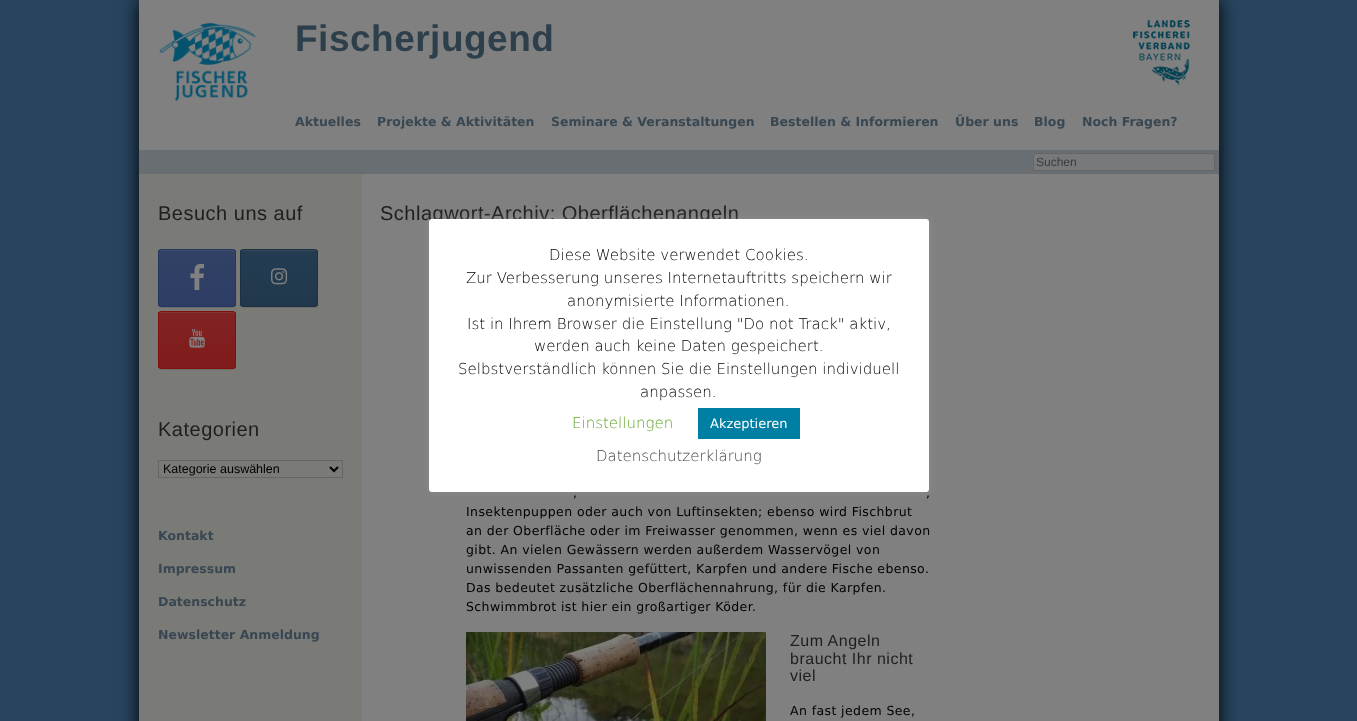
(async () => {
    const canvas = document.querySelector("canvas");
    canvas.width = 1357;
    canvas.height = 721;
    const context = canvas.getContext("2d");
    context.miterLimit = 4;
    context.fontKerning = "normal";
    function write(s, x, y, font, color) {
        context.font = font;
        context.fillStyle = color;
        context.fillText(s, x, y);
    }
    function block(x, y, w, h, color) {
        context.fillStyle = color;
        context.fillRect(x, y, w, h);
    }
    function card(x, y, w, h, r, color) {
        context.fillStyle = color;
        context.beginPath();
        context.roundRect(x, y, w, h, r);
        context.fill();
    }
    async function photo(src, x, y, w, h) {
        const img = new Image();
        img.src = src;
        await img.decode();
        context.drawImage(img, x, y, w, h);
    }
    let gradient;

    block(0, 0, 1357, 721, "rgb(40, 69, 96)");
    context.fillStyle = "rgb(0, 0, 0)";
    context.filter = "blur(10px)";
    context.beginPath();
    context.rect(139, 0, 1080, 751);
    context.fill();
    context.filter = "none";
    block(139, 0, 1080, 150, "rgb(128, 128, 128)");
    await photo("media/1.png", 159, 22, 97, 80);
    context.letterSpacing = "0.5px";
    write("Fischerjugend", 295, 51, "bold 37px Liberation Sans", "rgb(45, 63, 75)");
    await photo("media/2.png", 1133, 20, 57, 65);
    context.letterSpacing = "0px";
    write("Aktuelles", 295, 126, "bold 12.5px DejaVu Sans", "rgb(56, 71, 81)");
    write("Projekte & Aktivitäten", 377, 126, "bold 12.5px DejaVu Sans", "rgb(56, 71, 81)");
    write("Seminare & Veranstaltungen", 551, 126, "bold 12.5px DejaVu Sans", "rgb(56, 71, 81)");
    write("Bestellen & Informieren", 770, 126, "bold 12.5px DejaVu Sans", "rgb(56, 71, 81)");
    write("Über uns", 955, 126, "bold 12.5px DejaVu Sans", "rgb(56, 71, 81)");
    write("Blog", 1034, 126, "bold 12.5px DejaVu Sans", "rgb(56, 71, 81)");
    write("Noch Fragen?", 1082, 126, "bold 12.5px DejaVu Sans", "rgb(56, 71, 81)");
    block(139, 150, 1080, 24, "rgb(105, 110, 114)");
    context.fillStyle = "rgb(119, 121, 123)";
    context.beginPath();
    context.roundRect(1033.5, 153.5, 181, 17, 2.5);
    context.fill();
    context.strokeStyle = "rgb(102, 102, 102)";
    context.stroke();
    write("Suchen", 1036, 166, "12px Liberation Sans", "rgb(59, 59, 59)");
    block(362, 174, 857, 547, "rgb(128, 128, 128)");
    block(139, 174, 223, 547, "rgb(122, 122, 119)");
    context.letterSpacing = "0.5px";
    write("Besuch uns auf", 158, 220, "20px Liberation Sans", "rgb(30, 30, 30)");
    context.fillStyle = "rgba(0, 0, 0, 0.1)";
    context.filter = "blur(0.5px)";
    context.beginPath();
    context.roundRect(158, 250, 78, 58, 3);
    context.fill();
    context.filter = "none";
    context.save();
    context.beginPath();
    context.roundRect(158, 249, 78, 58, 3);
    context.clip();
    gradient = context.createLinearGradient(197, 306, 197, 250);
    gradient.addColorStop(0, "rgb(45, 61, 100)");
    gradient.addColorStop(1, "rgb(50, 66, 102)");
    context.fillStyle = gradient;
    context.fillRect(158, 250, 78, 56);
    context.restore();
    context.fillStyle = "rgba(128, 128, 128, 0.2)";
    context.beginPath();
    context.moveTo(161, 251);
    context.lineTo(233, 251);
    context.bezierCurveTo(234, 251, 235, 252, 235, 253);
    context.bezierCurveTo(235, 247, 224, 250, 221, 250);
    context.lineTo(173, 250);
    context.bezierCurveTo(170, 250, 159, 247, 159, 253);
    context.bezierCurveTo(159, 252, 160, 251, 161, 251);
    context.closePath();
    context.fill();
    context.beginPath();
    context.roundRect(158.5, 249.5, 77, 57, 2.5);
    context.strokeStyle = "rgb(35, 54, 97)";
    context.stroke();
    await photo("media/3.png", 190, 263, 15, 27);
    context.fillStyle = "rgba(0, 0, 0, 0.1)";
    context.filter = "blur(0.5px)";
    context.beginPath();
    context.roundRect(240, 250, 78, 58, 3);
    context.fill();
    context.filter = "none";
    context.save();
    context.beginPath();
    context.roundRect(240, 249, 78, 58, 3);
    context.clip();
    gradient = context.createLinearGradient(279, 306, 279, 250);
    gradient.addColorStop(0, "rgb(33, 56, 76)");
    gradient.addColorStop(1, "rgb(36, 60, 82)");
    context.fillStyle = gradient;
    context.fillRect(240, 250, 78, 56);
    context.restore();
    context.fillStyle = "rgba(128, 128, 128, 0.2)";
    context.beginPath();
    context.moveTo(243, 251);
    context.lineTo(315, 251);
    context.bezierCurveTo(316, 251, 317, 252, 317, 253);
    context.bezierCurveTo(317, 247, 306, 250, 303, 250);
    context.lineTo(255, 250);
    context.bezierCurveTo(252, 250, 241, 247, 241, 253);
    context.bezierCurveTo(241, 252, 242, 251, 243, 251);
    context.closePath();
    context.fill();
    context.beginPath();
    context.roundRect(240.5, 249.5, 77, 57, 2.5);
    context.strokeStyle = "rgb(29, 49, 67)";
    context.stroke();
    await photo("media/4.png", 271, 268, 17, 17);
    context.fillStyle = "rgba(0, 0, 0, 0.1)";
    context.filter = "blur(0.5px)";
    context.beginPath();
    context.roundRect(158, 312, 78, 58, 3);
    context.fill();
    context.filter = "none";
    context.save();
    context.beginPath();
    context.roundRect(158, 311, 78, 58, 3);
    context.clip();
    gradient = context.createLinearGradient(197, 368, 197, 312);
    gradient.addColorStop(0, "rgb(128, 27, 27)");
    gradient.addColorStop(1, "rgb(128, 35, 34)");
    context.fillStyle = gradient;
    context.fillRect(158, 312, 78, 56);
    context.restore();
    context.fillStyle = "rgba(128, 128, 128, 0.2)";
    context.beginPath();
    context.moveTo(161, 313);
    context.lineTo(233, 313);
    context.bezierCurveTo(234, 313, 235, 314, 235, 315);
    context.bezierCurveTo(235, 309, 224, 312, 221, 312);
    context.lineTo(173, 312);
    context.bezierCurveTo(170, 312, 159, 309, 159, 315);
    context.bezierCurveTo(159, 314, 160, 313, 161, 313);
    context.closePath();
    context.fill();
    context.beginPath();
    context.roundRect(158.5, 311.5, 77, 57, 2.5);
    context.strokeStyle = "rgb(128, 15, 14)";
    context.stroke();
    await photo("media/5.png", 189, 328, 16, 20);
    write("Kategorien", 158, 436, "20px Liberation Sans", "rgb(30, 30, 30)");
    context.strokeStyle = "rgb(102, 102, 102)";
    context.strokeRect(158.5, 460.5, 184, 17);
    context.beginPath();
    context.moveTo(330, 467);
    context.lineTo(334, 471);
    context.lineTo(338, 467);
    context.strokeStyle = "rgb(0, 0, 0)";
    context.lineWidth = 2;
    context.stroke();
    context.letterSpacing = "0px";
    write("Kategorie auswählen", 163, 473, "12.5px Liberation Sans", "rgb(0, 0, 0)");
    write("Kontakt", 158, 540, "bold 12.5px DejaVu Sans", "rgb(56, 71, 81)");
    write("Impressum", 158, 573, "bold 12.5px DejaVu Sans", "rgb(56, 71, 81)");
    write("Datenschutz", 158, 606, "bold 12.5px DejaVu Sans", "rgb(56, 71, 81)");
    write("Newsletter Anmeldung", 158, 639, "bold 12.5px DejaVu Sans", "rgb(56, 71, 81)");
    context.letterSpacing = "0.5px";
    write("Schlagwort-Archiv: Oberflächenangeln", 380, 220, "20px Liberation Sans", "rgb(30, 30, 30)");
    context.letterSpacing = "0.4px";
    write(",", 573, 497, "12.5px DejaVu Sans", "rgb(0, 0, 0)");
    write(",", 926, 497, "12.5px DejaVu Sans", "rgb(0, 0, 0)");
    write("Insektenpuppen oder auch von Luftinsekten; ebenso wird Fischbrut", 466, 516, "12.5px DejaVu Sans", "rgb(0, 0, 0)");
    write("an der Oberfläche oder im Freiwasser genommen, wenn es viel davon", 466, 535, "12.5px DejaVu Sans", "rgb(0, 0, 0)");
    write("gibt. An vielen Gewässern werden außerdem Wasservögel von", 466, 554, "12.5px DejaVu Sans", "rgb(0, 0, 0)");
    write("unwissenden Passanten gefüttert, Karpfen und andere Fische ebenso.", 466, 573, "12.5px DejaVu Sans", "rgb(0, 0, 0)");
    write("Das bedeutet zusätzliche Oberflächennahrung, für die Karpfen.", 466, 592, "12.5px DejaVu Sans", "rgb(0, 0, 0)");
    write("Schwimmbrot ist hier ein großartiger Köder.", 466, 611, "12.5px DejaVu Sans", "rgb(0, 0, 0)");
    await photo("media/6.png", 466, 632, 300, 89);
    context.letterSpacing = "0.5px";
    write("Zum Angeln", 790, 646, "16px Liberation Sans", "rgb(30, 30, 30)");
    write("braucht Ihr nicht", 790, 664, "16px Liberation Sans", "rgb(30, 30, 30)");
    write("viel", 790, 681, "16px Liberation Sans", "rgb(30, 30, 30)");
    context.letterSpacing = "0.4px";
    write("An fast jedem See,", 790, 715, "12.5px DejaVu Sans", "rgb(0, 0, 0)");
    context.fillStyle = "rgba(172, 171, 171, 0.3)";
    context.filter = "blur(5px)";
    context.beginPath();
    context.roundRect(429, 218, 500, 273, 3);
    context.fill();
    context.filter = "none";
    card(429, 219, 500, 273, 3, "rgb(255, 255, 255)");
    context.letterSpacing = "0px";
    write("Diese Website verwendet Cookies.", 549, 260, "200 15px DejaVu Sans", "rgb(0, 0, 0)");
    write("Zur Verbesserung unseres Internetauftritts speichern wir", 466, 283, "200 15px DejaVu Sans", "rgb(0, 0, 0)");
    write("anonymisierte Informationen.", 567, 306, "200 15px DejaVu Sans", "rgb(0, 0, 0)");
    write("Ist in Ihrem Browser die Einstellung \"Do not Track\" aktiv,", 467, 329, "200 15px DejaVu Sans", "rgb(0, 0, 0)");
    write("werden auch keine Daten gespeichert.", 534, 351, "200 15px DejaVu Sans", "rgb(0, 0, 0)");
    write("Selbstverständlich können Sie die Einstellungen individuell", 458, 374, "200 15px DejaVu Sans", "rgb(0, 0, 0)");
    write("anpassen.", 640, 397, "200 15px DejaVu Sans", "rgb(0, 0, 0)");
    write("Einstellungen", 572, 428, "200 15px DejaVu Sans", "rgb(98, 163, 41)");
    block(698, 408, 102, 31, "rgb(0, 127, 164)");
    write("Akzeptieren", 710, 428, "13px DejaVu Sans", "rgb(255, 255, 255)");
    write("Datenschutzerklärung", 596, 461, "200 15px DejaVu Sans", "rgb(68, 68, 68)");
})();
